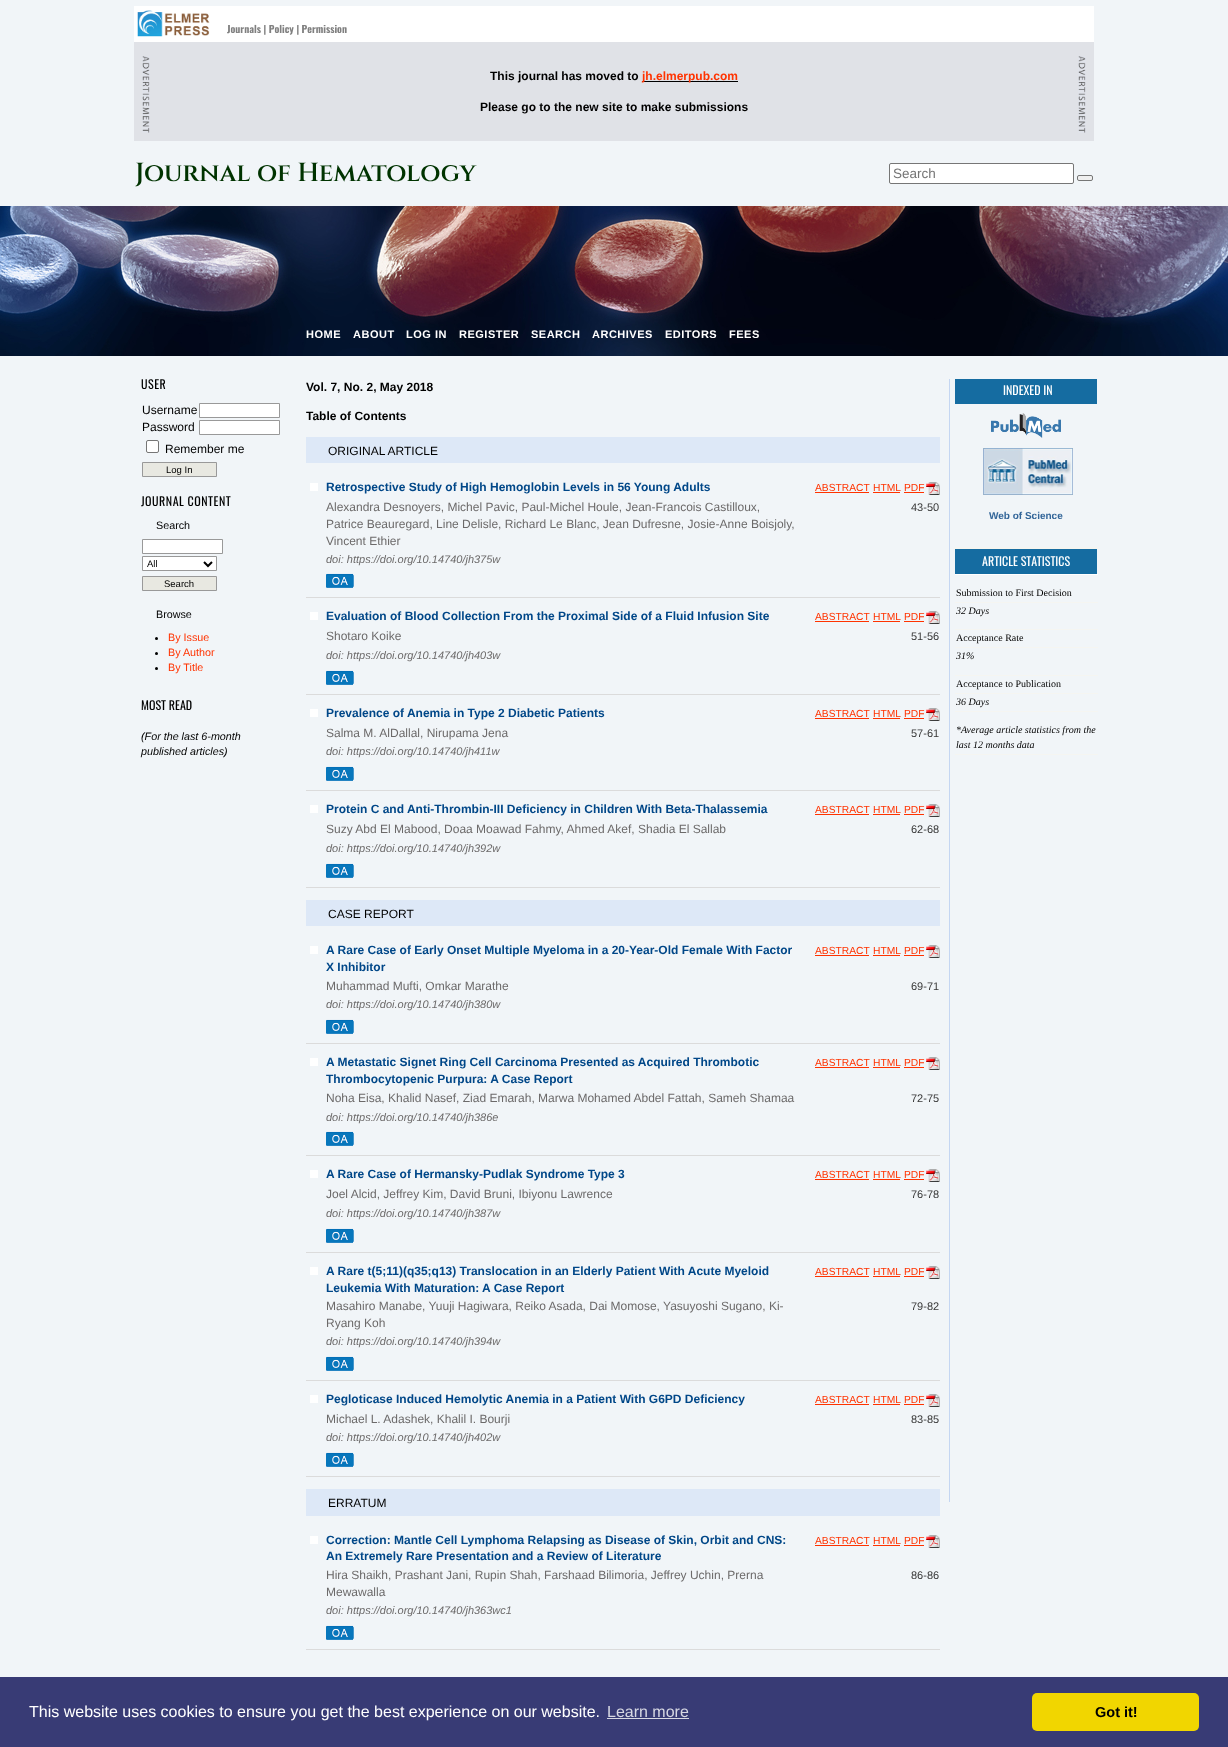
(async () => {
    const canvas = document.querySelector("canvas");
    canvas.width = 1228;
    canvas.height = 1747;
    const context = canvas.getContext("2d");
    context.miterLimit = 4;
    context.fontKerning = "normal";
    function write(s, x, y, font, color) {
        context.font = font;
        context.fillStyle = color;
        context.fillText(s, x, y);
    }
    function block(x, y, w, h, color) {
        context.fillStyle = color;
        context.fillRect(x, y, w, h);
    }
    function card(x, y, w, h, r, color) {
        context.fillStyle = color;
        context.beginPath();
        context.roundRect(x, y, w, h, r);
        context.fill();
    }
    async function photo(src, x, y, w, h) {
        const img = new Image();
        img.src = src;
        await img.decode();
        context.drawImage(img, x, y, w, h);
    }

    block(0, 0, 1228, 1747, "rgb(241, 245, 248)");
    await photo("media/1.png", 0, 206, 1228, 150);
    block(134, 6, 960, 36, "rgb(255, 255, 255)");
    await photo("media/2.png", 137, 10, 73, 27);
    write("Journals | Policy | Permission", 227, 33, "bold 10px Oswald", "rgb(128, 128, 128)");
    block(134, 42, 960, 99, "rgb(224, 226, 231)");
    await photo("media/3.png", 142, 56, 8, 77);
    write("This journal has moved to", 490, 80, "bold 12px Liberation Sans", "rgb(0, 0, 0)");
    block(642, 81, 96, 1, "rgb(0, 0, 0)");
    write("jh.elmerpub.com", 642, 80, "bold 12px Liberation Sans", "rgb(255, 51, 0)");
    write("Please go to the new site to make submissions", 480, 111, "bold 12px Liberation Sans", "rgb(0, 0, 0)");
    await photo("media/3.png", 1078, 56, 8, 77);
    write("Journal of Hematology", 135, 181, "600 26px Cinzel", "rgb(0, 51, 0)");
    context.fillStyle = "rgb(255, 255, 255)";
    context.beginPath();
    context.roundRect(889.5, 163.5, 184, 20, 1.5);
    context.fill();
    context.strokeStyle = "rgb(118, 118, 118)";
    context.stroke();
    write("Search", 893, 178, "13.5px Liberation Sans", "rgb(117, 117, 117)");
    context.fillStyle = "rgb(239, 239, 239)";
    context.beginPath();
    context.roundRect(1077.5, 175.5, 15, 5, 1.5);
    context.fill();
    context.stroke();
    context.letterSpacing = "0.5px";
    write("HOME", 306, 338, "bold 11px Liberation Sans", "rgb(255, 255, 255)");
    write("ABOUT", 353, 338, "bold 11px Liberation Sans", "rgb(255, 255, 255)");
    write("LOG IN", 406, 338, "bold 11px Liberation Sans", "rgb(255, 255, 255)");
    write("REGISTER", 459, 338, "bold 11px Liberation Sans", "rgb(255, 255, 255)");
    write("SEARCH", 531, 338, "bold 11px Liberation Sans", "rgb(255, 255, 255)");
    write("ARCHIVES", 592, 338, "bold 11px Liberation Sans", "rgb(255, 255, 255)");
    write("EDITORS", 665, 338, "bold 11px Liberation Sans", "rgb(255, 255, 255)");
    write("FEES", 729, 338, "bold 11px Liberation Sans", "rgb(255, 255, 255)");
    context.letterSpacing = "0px";
    write("Vol. 7, No. 2, May 2018", 306, 391, "bold 12px Liberation Sans", "rgb(0, 0, 0)");
    write("Table of Contents", 306, 420, "bold 12px Liberation Sans", "rgb(0, 0, 0)");
    block(306, 437, 634, 26, "rgb(221, 232, 247)");
    write("ORIGINAL ARTICLE", 328, 455, "12px Liberation Sans", "rgb(0, 0, 0)");
    await photo("media/4.png", 326, 573, 28, 15);
    block(306, 597, 634, 1, "rgb(219, 219, 219)");
    block(310, 483, 8, 8, "rgb(255, 255, 255)");
    write("Retrospective Study of High Hemoglobin Levels in 56 Young Adults", 326, 491, "bold 12px Liberation Sans", "rgb(0, 71, 136)");
    await photo("media/5.png", 926, 482, 14, 13);
    write("ABSTRACT", 815, 491, "10.25px Liberation Sans", "rgb(255, 51, 0)");
    block(815, 492, 54, 1, "rgb(255, 51, 0)");
    write("HTML", 873, 491, "10.25px Liberation Sans", "rgb(255, 51, 0)");
    block(873, 492, 27, 1, "rgb(255, 51, 0)");
    write("PDF", 904, 491, "10.25px Liberation Sans", "rgb(255, 51, 0)");
    block(904, 492, 20, 1, "rgb(255, 51, 0)");
    write("Alexandra Desnoyers, Michel Pavic, Paul-Michel Houle, Jean-Francois Castilloux,", 326, 511, "12px Liberation Sans", "rgb(108, 106, 106)");
    write("Patrice Beauregard, Line Delisle, Richard Le Blanc, Jean Dufresne, Josie-Anne Boisjoly,", 326, 528, "12px Liberation Sans", "rgb(108, 106, 106)");
    write("Vincent Ethier", 326, 545, "12px Liberation Sans", "rgb(108, 106, 106)");
    write("43-50", 911, 511, "11px Liberation Sans", "rgb(56, 56, 56)");
    write("doi: https://doi.org/10.14740/jh375w", 326, 563, "italic 11px Liberation Sans", "rgb(108, 106, 106)");
    await photo("media/6.png", 326, 670, 28, 15);
    block(306, 694, 634, 1, "rgb(219, 219, 219)");
    block(310, 612, 8, 8, "rgb(255, 255, 255)");
    write("Evaluation of Blood Collection From the Proximal Side of a Fluid Infusion Site", 326, 620, "bold 12px Liberation Sans", "rgb(0, 71, 136)");
    await photo("media/5.png", 926, 611, 14, 13);
    write("ABSTRACT", 815, 620, "10.25px Liberation Sans", "rgb(255, 51, 0)");
    block(815, 621, 54, 1, "rgb(255, 51, 0)");
    write("HTML", 873, 620, "10.25px Liberation Sans", "rgb(255, 51, 0)");
    block(873, 621, 27, 1, "rgb(255, 51, 0)");
    write("PDF", 904, 620, "10.25px Liberation Sans", "rgb(255, 51, 0)");
    block(904, 621, 20, 1, "rgb(255, 51, 0)");
    write("Shotaro Koike", 326, 640, "12px Liberation Sans", "rgb(108, 106, 106)");
    write("51-56", 911, 640, "11px Liberation Sans", "rgb(56, 56, 56)");
    write("doi: https://doi.org/10.14740/jh403w", 326, 659, "italic 11px Liberation Sans", "rgb(108, 106, 106)");
    await photo("media/4.png", 326, 766, 28, 15);
    block(306, 790, 634, 1, "rgb(219, 219, 219)");
    block(310, 709, 8, 8, "rgb(255, 255, 255)");
    write("Prevalence of Anemia in Type 2 Diabetic Patients", 326, 717, "bold 12px Liberation Sans", "rgb(0, 71, 136)");
    await photo("media/5.png", 926, 708, 14, 13);
    write("ABSTRACT", 815, 717, "10.25px Liberation Sans", "rgb(255, 51, 0)");
    block(815, 718, 54, 1, "rgb(255, 51, 0)");
    write("HTML", 873, 717, "10.25px Liberation Sans", "rgb(255, 51, 0)");
    block(873, 718, 27, 1, "rgb(255, 51, 0)");
    write("PDF", 904, 717, "10.25px Liberation Sans", "rgb(255, 51, 0)");
    block(904, 718, 20, 1, "rgb(255, 51, 0)");
    write("Salma M. AlDallal, Nirupama Jena", 326, 737, "12px Liberation Sans", "rgb(108, 106, 106)");
    write("57-61", 911, 737, "11px Liberation Sans", "rgb(56, 56, 56)");
    write("doi: https://doi.org/10.14740/jh411w", 326, 755, "italic 11px Liberation Sans", "rgb(108, 106, 106)");
    await photo("media/6.png", 326, 863, 28, 15);
    block(306, 887, 634, 1, "rgb(219, 219, 219)");
    block(310, 805, 8, 8, "rgb(255, 255, 255)");
    write("Protein C and Anti-Thrombin-III Deficiency in Children With Beta-Thalassemia", 326, 813, "bold 12px Liberation Sans", "rgb(0, 71, 136)");
    await photo("media/5.png", 926, 804, 14, 13);
    write("ABSTRACT", 815, 813, "10.25px Liberation Sans", "rgb(255, 51, 0)");
    block(815, 814, 54, 1, "rgb(255, 51, 0)");
    write("HTML", 873, 813, "10.25px Liberation Sans", "rgb(255, 51, 0)");
    block(873, 814, 27, 1, "rgb(255, 51, 0)");
    write("PDF", 904, 813, "10.25px Liberation Sans", "rgb(255, 51, 0)");
    block(904, 814, 20, 1, "rgb(255, 51, 0)");
    write("Suzy Abd El Mabood, Doaa Moawad Fahmy, Ahmed Akef, Shadia El Sallab", 326, 833, "12px Liberation Sans", "rgb(108, 106, 106)");
    write("62-68", 911, 833, "11px Liberation Sans", "rgb(56, 56, 56)");
    write("doi: https://doi.org/10.14740/jh392w", 326, 852, "italic 11px Liberation Sans", "rgb(108, 106, 106)");
    block(306, 900, 634, 26, "rgb(221, 232, 247)");
    write("CASE REPORT", 328, 918, "12px Liberation Sans", "rgb(0, 0, 0)");
    await photo("media/4.png", 326, 1019, 28, 15);
    block(306, 1043, 634, 1, "rgb(219, 219, 219)");
    block(310, 946, 8, 8, "rgb(255, 255, 255)");
    write("A Rare Case of Early Onset Multiple Myeloma in a 20-Year-Old Female With Factor", 326, 954, "bold 12px Liberation Sans", "rgb(0, 71, 136)");
    write("X Inhibitor", 326, 971, "bold 12px Liberation Sans", "rgb(0, 71, 136)");
    await photo("media/5.png", 926, 945, 14, 13);
    write("ABSTRACT", 815, 954, "10.25px Liberation Sans", "rgb(255, 51, 0)");
    block(815, 955, 54, 1, "rgb(255, 51, 0)");
    write("HTML", 873, 954, "10.25px Liberation Sans", "rgb(255, 51, 0)");
    block(873, 955, 27, 1, "rgb(255, 51, 0)");
    write("PDF", 904, 954, "10.25px Liberation Sans", "rgb(255, 51, 0)");
    block(904, 955, 20, 1, "rgb(255, 51, 0)");
    write("Muhammad Mufti, Omkar Marathe", 326, 990, "12px Liberation Sans", "rgb(108, 106, 106)");
    write("69-71", 911, 990, "11px Liberation Sans", "rgb(56, 56, 56)");
    write("doi: https://doi.org/10.14740/jh380w", 326, 1008, "italic 11px Liberation Sans", "rgb(108, 106, 106)");
    await photo("media/6.png", 326, 1131, 28, 15);
    block(306, 1155, 634, 1, "rgb(219, 219, 219)");
    block(310, 1058, 8, 8, "rgb(255, 255, 255)");
    write("A Metastatic Signet Ring Cell Carcinoma Presented as Acquired Thrombotic", 326, 1066, "bold 12px Liberation Sans", "rgb(0, 71, 136)");
    write("Thrombocytopenic Purpura: A Case Report", 326, 1083, "bold 12px Liberation Sans", "rgb(0, 71, 136)");
    await photo("media/5.png", 926, 1057, 14, 13);
    write("ABSTRACT", 815, 1066, "10.25px Liberation Sans", "rgb(255, 51, 0)");
    block(815, 1067, 54, 1, "rgb(255, 51, 0)");
    write("HTML", 873, 1066, "10.25px Liberation Sans", "rgb(255, 51, 0)");
    block(873, 1067, 27, 1, "rgb(255, 51, 0)");
    write("PDF", 904, 1066, "10.25px Liberation Sans", "rgb(255, 51, 0)");
    block(904, 1067, 20, 1, "rgb(255, 51, 0)");
    write("Noha Eisa, Khalid Nasef, Ziad Emarah, Marwa Mohamed Abdel Fattah, Sameh Shamaa", 326, 1102, "12px Liberation Sans", "rgb(108, 106, 106)");
    write("72-75", 911, 1102, "11px Liberation Sans", "rgb(56, 56, 56)");
    write("doi: https://doi.org/10.14740/jh386e", 326, 1121, "italic 11px Liberation Sans", "rgb(108, 106, 106)");
    await photo("media/6.png", 326, 1228, 28, 15);
    block(306, 1252, 634, 1, "rgb(219, 219, 219)");
    block(310, 1170, 8, 8, "rgb(255, 255, 255)");
    write("A Rare Case of Hermansky-Pudlak Syndrome Type 3", 326, 1178, "bold 12px Liberation Sans", "rgb(0, 71, 136)");
    await photo("media/5.png", 926, 1169, 14, 13);
    write("ABSTRACT", 815, 1178, "10.25px Liberation Sans", "rgb(255, 51, 0)");
    block(815, 1179, 54, 1, "rgb(255, 51, 0)");
    write("HTML", 873, 1178, "10.25px Liberation Sans", "rgb(255, 51, 0)");
    block(873, 1179, 27, 1, "rgb(255, 51, 0)");
    write("PDF", 904, 1178, "10.25px Liberation Sans", "rgb(255, 51, 0)");
    block(904, 1179, 20, 1, "rgb(255, 51, 0)");
    write("Joel Alcid, Jeffrey Kim, David Bruni, Ibiyonu Lawrence", 326, 1198, "12px Liberation Sans", "rgb(108, 106, 106)");
    write("76-78", 911, 1198, "11px Liberation Sans", "rgb(56, 56, 56)");
    write("doi: https://doi.org/10.14740/jh387w", 326, 1217, "italic 11px Liberation Sans", "rgb(108, 106, 106)");
    await photo("media/4.png", 326, 1356, 28, 15);
    block(306, 1380, 634, 1, "rgb(219, 219, 219)");
    block(310, 1267, 8, 8, "rgb(255, 255, 255)");
    write("A Rare t(5;11)(q35;q13) Translocation in an Elderly Patient With Acute Myeloid", 326, 1275, "bold 12px Liberation Sans", "rgb(0, 71, 136)");
    write("Leukemia With Maturation: A Case Report", 326, 1292, "bold 12px Liberation Sans", "rgb(0, 71, 136)");
    await photo("media/5.png", 926, 1266, 14, 13);
    write("ABSTRACT", 815, 1275, "10.25px Liberation Sans", "rgb(255, 51, 0)");
    block(815, 1276, 54, 1, "rgb(255, 51, 0)");
    write("HTML", 873, 1275, "10.25px Liberation Sans", "rgb(255, 51, 0)");
    block(873, 1276, 27, 1, "rgb(255, 51, 0)");
    write("PDF", 904, 1275, "10.25px Liberation Sans", "rgb(255, 51, 0)");
    block(904, 1276, 20, 1, "rgb(255, 51, 0)");
    write("Masahiro Manabe, Yuuji Hagiwara, Reiko Asada, Dai Momose, Yasuyoshi Sugano, Ki-", 326, 1310, "12px Liberation Sans", "rgb(108, 106, 106)");
    write("Ryang Koh", 326, 1327, "12px Liberation Sans", "rgb(108, 106, 106)");
    write("79-82", 911, 1310, "11px Liberation Sans", "rgb(56, 56, 56)");
    write("doi: https://doi.org/10.14740/jh394w", 326, 1345, "italic 11px Liberation Sans", "rgb(108, 106, 106)");
    await photo("media/6.png", 326, 1452, 28, 15);
    block(306, 1476, 634, 1, "rgb(219, 219, 219)");
    block(310, 1395, 8, 8, "rgb(255, 255, 255)");
    write("Pegloticase Induced Hemolytic Anemia in a Patient With G6PD Deficiency", 326, 1403, "bold 12px Liberation Sans", "rgb(0, 71, 136)");
    await photo("media/5.png", 926, 1394, 14, 13);
    write("ABSTRACT", 815, 1403, "10.25px Liberation Sans", "rgb(255, 51, 0)");
    block(815, 1404, 54, 1, "rgb(255, 51, 0)");
    write("HTML", 873, 1403, "10.25px Liberation Sans", "rgb(255, 51, 0)");
    block(873, 1404, 27, 1, "rgb(255, 51, 0)");
    write("PDF", 904, 1403, "10.25px Liberation Sans", "rgb(255, 51, 0)");
    block(904, 1404, 20, 1, "rgb(255, 51, 0)");
    write("Michael L. Adashek, Khalil I. Bourji", 326, 1423, "12px Liberation Sans", "rgb(108, 106, 106)");
    write("83-85", 911, 1423, "11px Liberation Sans", "rgb(56, 56, 56)");
    write("doi: https://doi.org/10.14740/jh402w", 326, 1441, "italic 11px Liberation Sans", "rgb(108, 106, 106)");
    block(306, 1489, 634, 27, "rgb(221, 232, 247)");
    write("ERRATUM", 328, 1507, "12px Liberation Sans", "rgb(0, 0, 0)");
    await photo("media/6.png", 326, 1625, 28, 15);
    block(306, 1649, 634, 1, "rgb(219, 219, 219)");
    block(310, 1536, 8, 8, "rgb(255, 255, 255)");
    write("Correction: Mantle Cell Lymphoma Relapsing as Disease of Skin, Orbit and CNS:", 326, 1544, "bold 12px Liberation Sans", "rgb(0, 71, 136)");
    write("An Extremely Rare Presentation and a Review of Literature", 326, 1560, "bold 12px Liberation Sans", "rgb(0, 71, 136)");
    await photo("media/5.png", 926, 1535, 14, 13);
    write("ABSTRACT", 815, 1544, "10.25px Liberation Sans", "rgb(255, 51, 0)");
    block(815, 1545, 54, 1, "rgb(255, 51, 0)");
    write("HTML", 873, 1544, "10.25px Liberation Sans", "rgb(255, 51, 0)");
    block(873, 1545, 27, 1, "rgb(255, 51, 0)");
    write("PDF", 904, 1544, "10.25px Liberation Sans", "rgb(255, 51, 0)");
    block(904, 1545, 20, 1, "rgb(255, 51, 0)");
    write("Hira Shaikh, Prashant Jani, Rupin Shah, Farshaad Bilimoria, Jeffrey Uchin, Prerna", 326, 1579, "12px Liberation Sans", "rgb(108, 106, 106)");
    write("Mewawalla", 326, 1596, "12px Liberation Sans", "rgb(108, 106, 106)");
    write("86-86", 911, 1579, "11px Liberation Sans", "rgb(56, 56, 56)");
    write("doi: https://doi.org/10.14740/jh363wc1", 326, 1614, "italic 11px Liberation Sans", "rgb(108, 106, 106)");
    context.letterSpacing = "0.5px";
    write("USER", 141, 389, "12px Oswald", "rgb(0, 0, 0)");
    context.letterSpacing = "0px";
    write("Username", 142, 414, "12px Liberation Sans", "rgb(0, 0, 0)");
    context.fillStyle = "rgb(255, 255, 255)";
    context.beginPath();
    context.rect(199.5, 403.5, 80, 14);
    context.fill();
    context.strokeStyle = "rgb(153, 153, 153)";
    context.stroke();
    write("Password", 142, 431, "12px Liberation Sans", "rgb(0, 0, 0)");
    context.fillStyle = "rgb(255, 255, 255)";
    context.beginPath();
    context.rect(199.5, 420.5, 80, 14);
    context.fill();
    context.stroke();
    context.beginPath();
    context.roundRect(146.5, 440.5, 12, 12, 1.5);
    context.fill();
    context.strokeStyle = "rgb(118, 118, 118)";
    context.stroke();
    write("Remember me", 165, 453, "12px Liberation Sans", "rgb(0, 0, 0)");
    context.fillStyle = "rgb(232, 232, 225)";
    context.beginPath();
    context.rect(142.5, 462.5, 74, 14);
    context.fill();
    context.strokeStyle = "rgb(153, 153, 153)";
    context.stroke();
    write("Log In", 166, 473, "9.5px Liberation Sans", "rgb(0, 0, 0)");
    context.letterSpacing = "0.5px";
    write("JOURNAL CONTENT", 141, 506, "12px Oswald", "rgb(0, 0, 0)");
    context.letterSpacing = "0px";
    write("Search", 156, 529, "10.75px Liberation Sans", "rgb(0, 0, 0)");
    context.fillStyle = "rgb(255, 255, 255)";
    context.beginPath();
    context.rect(142.5, 539.5, 80, 14);
    context.fill();
    context.stroke();
    context.beginPath();
    context.rect(142.5, 556.5, 74, 14);
    context.fill();
    context.stroke();
    context.beginPath();
    context.moveTo(204, 562);
    context.lineTo(208, 566);
    context.lineTo(212, 562);
    context.strokeStyle = "rgb(0, 0, 0)";
    context.lineWidth = 2;
    context.stroke();
    write("All", 147, 567, "9.5px Liberation Sans", "rgb(0, 0, 0)");
    context.fillStyle = "rgb(232, 232, 225)";
    context.beginPath();
    context.rect(142.5, 576.5, 74, 14);
    context.fill();
    context.strokeStyle = "rgb(153, 153, 153)";
    context.lineWidth = 1;
    context.stroke();
    write("Search", 164, 587, "9.5px Liberation Sans", "rgb(0, 0, 0)");
    write("Browse", 156, 618, "10.75px Liberation Sans", "rgb(0, 0, 0)");
    context.beginPath();
    context.arc(156.5, 638.5, 1.5, 0, Math.PI * 2);
    context.fill();
    write("By Issue", 168, 641, "10.75px Liberation Sans", "rgb(255, 51, 0)");
    context.fillStyle = "rgb(0, 0, 0)";
    context.beginPath();
    context.arc(156.5, 653.5, 1.5, 0, Math.PI * 2);
    context.fill();
    write("By Author", 168, 656, "10.75px Liberation Sans", "rgb(255, 51, 0)");
    context.fillStyle = "rgb(0, 0, 0)";
    context.beginPath();
    context.arc(156.5, 668.5, 1.5, 0, Math.PI * 2);
    context.fill();
    write("By Title", 168, 671, "10.75px Liberation Sans", "rgb(255, 51, 0)");
    write("MOST READ", 141, 710, "12px Oswald", "rgb(0, 0, 0)");
    write("(For the last 6-month", 141, 740, "italic 10.75px Liberation Sans", "rgb(0, 0, 0)");
    write("published articles)", 141, 755, "italic 10.75px Liberation Sans", "rgb(0, 0, 0)");
    block(949, 379, 1, 1123, "rgb(196, 214, 242)");
    block(955, 379, 142, 25, "rgb(21, 108, 161)");
    write("INDEXED IN", 1003, 395, "12px Oswald", "rgb(255, 255, 255)");
    await photo("media/7.png", 991, 413, 70, 25);
    await photo("media/8.png", 983, 448, 90, 47);
    write("Web of Science", 989, 519, "bold 10px Liberation Sans", "rgb(51, 102, 153)");
    block(955, 549, 142, 25, "rgb(21, 108, 161)");
    block(955, 574, 143, 1, "rgb(255, 255, 255)");
    block(954, 547, 144, 2, "rgb(245, 245, 241)");
    write("ARTICLE STATISTICS", 982, 566, "12px Oswald", "rgb(255, 255, 255)");
    write("Submission to First Decision", 956, 596, "10px Liberation Serif", "rgb(0, 0, 0)");
    block(955, 602, 143, 1, "rgb(245, 245, 241)");
    write("32 Days", 956, 614, "italic 10px Liberation Serif", "rgb(0, 0, 0)");
    block(955, 629, 143, 1, "rgb(245, 245, 241)");
    write("Acceptance Rate", 956, 641, "10px Liberation Serif", "rgb(0, 0, 0)");
    block(955, 647, 143, 1, "rgb(245, 245, 241)");
    write("31%", 956, 659, "italic 10px Liberation Serif", "rgb(0, 0, 0)");
    block(955, 675, 143, 1, "rgb(245, 245, 241)");
    write("Acceptance to Publication", 956, 687, "10px Liberation Serif", "rgb(0, 0, 0)");
    block(955, 693, 143, 1, "rgb(245, 245, 241)");
    write("36 Days", 956, 705, "italic 10px Liberation Serif", "rgb(0, 0, 0)");
    block(955, 711, 143, 1, "rgb(245, 245, 241)");
    block(955, 754, 143, 1, "rgb(245, 245, 241)");
    write("*Average article statistics from the", 956, 733, "italic 10px Liberation Serif", "rgb(0, 0, 0)");
    write("last 12 months data", 956, 748, "italic 10px Liberation Serif", "rgb(0, 0, 0)");
    block(0, 1677, 1228, 70, "rgb(56, 59, 117)");
    write("This website uses cookies to ensure you get the best experience on our website.", 29, 1717, "16px Liberation Sans", "rgb(255, 255, 255)");
    write("Learn more", 607, 1717, "16px Liberation Sans", "rgb(215, 216, 227)");
    block(607, 1718, 82, 1, "rgb(215, 216, 227)");
    card(1032, 1693, 167, 38, 5, "rgb(241, 214, 0)");
    write("Got it!", 1095, 1717, "bold 14.5px Liberation Sans", "rgb(0, 0, 0)");
})();
